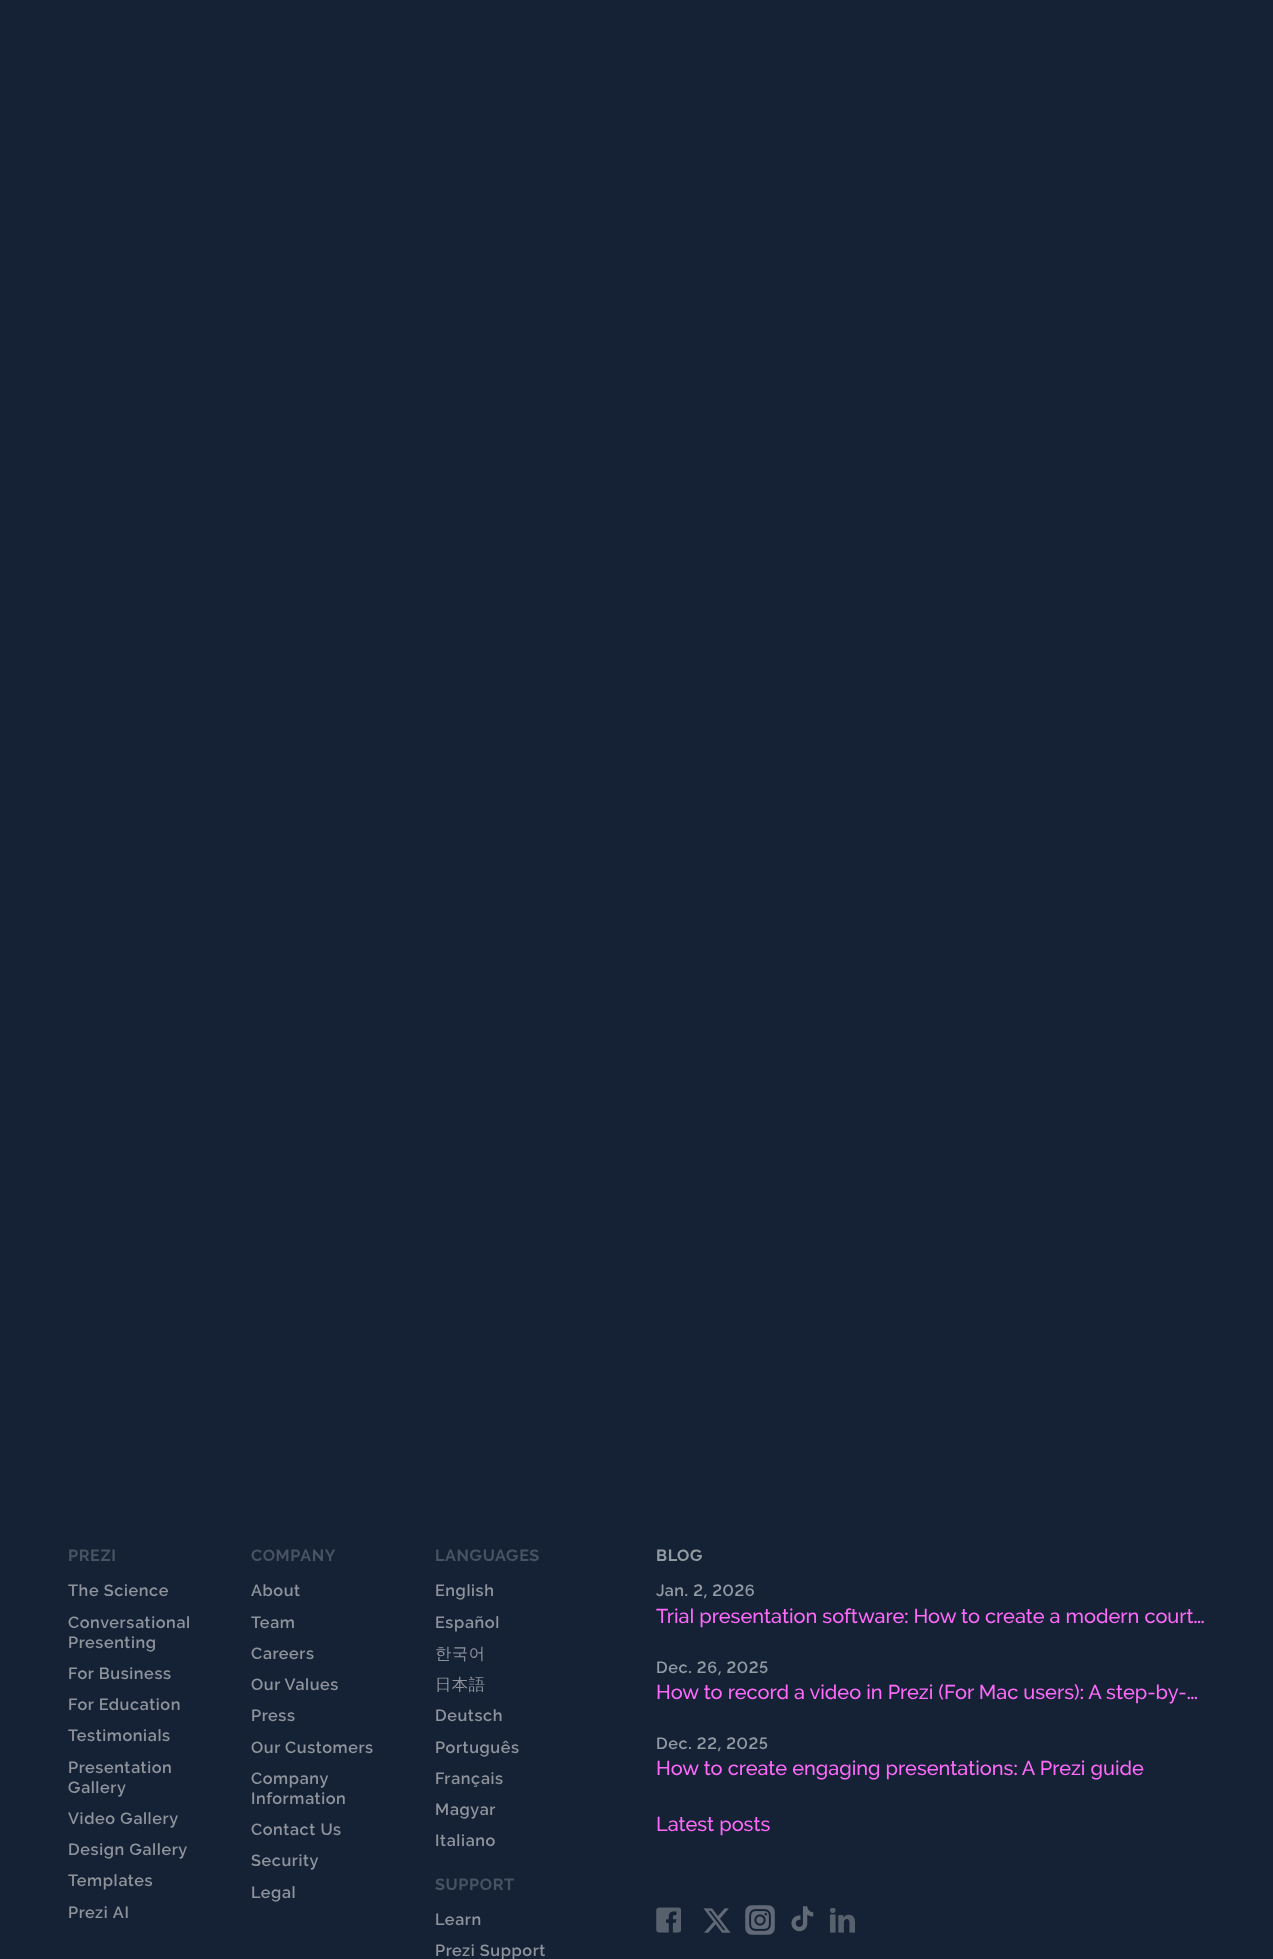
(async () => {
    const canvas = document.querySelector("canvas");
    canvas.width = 1273;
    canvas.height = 1959;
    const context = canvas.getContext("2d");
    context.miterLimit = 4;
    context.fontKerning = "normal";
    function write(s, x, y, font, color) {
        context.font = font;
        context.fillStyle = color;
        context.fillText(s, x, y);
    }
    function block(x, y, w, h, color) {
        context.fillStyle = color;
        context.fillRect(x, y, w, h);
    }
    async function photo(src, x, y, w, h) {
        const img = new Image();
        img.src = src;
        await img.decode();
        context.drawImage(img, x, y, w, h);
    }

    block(0, 0, 1273, 1959, "rgb(21, 34, 53)");
    context.letterSpacing = "0.6px";
    write("PREZI", 68, 1561, "bold 16.25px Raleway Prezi", "rgb(71, 82, 98)");
    write("The Science", 68, 1596, "600 16.25px Raleway Prezi", "rgb(142, 147, 156)");
    write("Conversational", 68, 1628, "600 16.25px Raleway Prezi", "rgb(142, 147, 156)");
    write("Presenting", 68, 1648, "600 16.25px Raleway Prezi", "rgb(142, 147, 156)");
    write("For Business", 68, 1679, "600 16.25px Raleway Prezi", "rgb(142, 147, 156)");
    write("For Education", 68, 1710, "600 16.25px Raleway Prezi", "rgb(142, 147, 156)");
    write("Testimonials", 68, 1741, "600 16.25px Raleway Prezi", "rgb(142, 147, 156)");
    write("Presentation", 68, 1773, "600 16.25px Raleway Prezi", "rgb(142, 147, 156)");
    write("Gallery", 68, 1793, "600 16.25px Raleway Prezi", "rgb(142, 147, 156)");
    write("Video Gallery", 68, 1824, "600 16.25px Raleway Prezi", "rgb(142, 147, 156)");
    write("Design Gallery", 68, 1855, "600 16.25px Raleway Prezi", "rgb(142, 147, 156)");
    write("Templates", 68, 1886, "600 16.25px Raleway Prezi", "rgb(142, 147, 156)");
    write("Prezi AI", 68, 1918, "600 16.25px Raleway Prezi", "rgb(142, 147, 156)");
    write("COMPANY", 251, 1561, "bold 16.25px Raleway Prezi", "rgb(71, 82, 98)");
    write("About", 251, 1596, "600 16.25px Raleway Prezi", "rgb(142, 147, 156)");
    write("Team", 251, 1628, "600 16.25px Raleway Prezi", "rgb(142, 147, 156)");
    write("Careers", 251, 1659, "600 16.25px Raleway Prezi", "rgb(142, 147, 156)");
    write("Our Values", 251, 1690, "600 16.25px Raleway Prezi", "rgb(142, 147, 156)");
    write("Press", 251, 1721, "600 16.25px Raleway Prezi", "rgb(142, 147, 156)");
    write("Our Customers", 251, 1753, "600 16.25px Raleway Prezi", "rgb(142, 147, 156)");
    write("Company", 251, 1784, "600 16.25px Raleway Prezi", "rgb(142, 147, 156)");
    write("Information", 251, 1804, "600 16.25px Raleway Prezi", "rgb(142, 147, 156)");
    write("Contact Us", 251, 1835, "600 16.25px Raleway Prezi", "rgb(142, 147, 156)");
    write("Security", 251, 1866, "600 16.25px Raleway Prezi", "rgb(142, 147, 156)");
    write("Legal", 251, 1898, "600 16.25px Raleway Prezi", "rgb(142, 147, 156)");
    write("LANGUAGES", 435, 1561, "bold 16.25px Raleway Prezi", "rgb(71, 82, 98)");
    write("English", 435, 1596, "600 16.25px Raleway Prezi", "rgb(142, 147, 156)");
    write("Español", 435, 1628, "600 16.25px Raleway Prezi", "rgb(142, 147, 156)");
    write("한국어", 435, 1659, "500 16.25px WenQuanYi Zen Hei", "rgb(142, 147, 156)");
    write("日本語", 435, 1690, "500 16.25px WenQuanYi Zen Hei", "rgb(142, 147, 156)");
    write("Deutsch", 435, 1721, "600 16.25px Raleway Prezi", "rgb(142, 147, 156)");
    write("Português", 435, 1753, "600 16.25px Raleway Prezi", "rgb(142, 147, 156)");
    write("Français", 435, 1784, "600 16.25px Raleway Prezi", "rgb(142, 147, 156)");
    write("Magyar", 435, 1815, "600 16.25px Raleway Prezi", "rgb(142, 147, 156)");
    write("Italiano", 435, 1846, "600 16.25px Raleway Prezi", "rgb(142, 147, 156)");
    write("SUPPORT", 435, 1890, "bold 16.25px Raleway Prezi", "rgb(71, 82, 98)");
    write("Learn", 435, 1925, "600 16.25px Raleway Prezi", "rgb(142, 147, 156)");
    write("Prezi Support", 435, 1956, "600 16.25px Raleway Prezi", "rgb(142, 147, 156)");
    write("BLOG", 656, 1561, "bold 16.25px Raleway Prezi", "rgb(146, 154, 163)");
    write("Jan. 2, 2026", 656, 1596, "600 16.25px Raleway Prezi", "rgb(146, 154, 163)");
    context.letterSpacing = "0px";
    write("Trial presentation software: How to create a modern court…", 656, 1623, "500 20px Raleway Prezi", "rgb(253, 106, 250)");
    context.letterSpacing = "0.6px";
    write("Dec. 26, 2025", 656, 1673, "600 16.25px Raleway Prezi", "rgb(146, 154, 163)");
    context.letterSpacing = "0px";
    write("How to record a video in Prezi (For Mac users): A step-by-…", 656, 1699, "500 20px Raleway Prezi", "rgb(253, 106, 250)");
    context.letterSpacing = "0.6px";
    write("Dec. 22, 2025", 656, 1749, "600 16.25px Raleway Prezi", "rgb(146, 154, 163)");
    context.letterSpacing = "0px";
    write("How to create engaging presentations: A Prezi guide", 656, 1775, "500 20px Raleway Prezi", "rgb(253, 106, 250)");
    write("Latest posts", 656, 1831, "500 20px Raleway Prezi", "rgb(253, 106, 250)");
    await photo("media/1.png", 656, 1907, 25, 26);
    await photo("media/2.png", 703, 1908, 28, 25);
    await photo("media/3.png", 745, 1905, 30, 30);
    await photo("media/4.png", 791, 1906, 23, 26);
    await photo("media/5.png", 830, 1908, 25, 25);
})();
